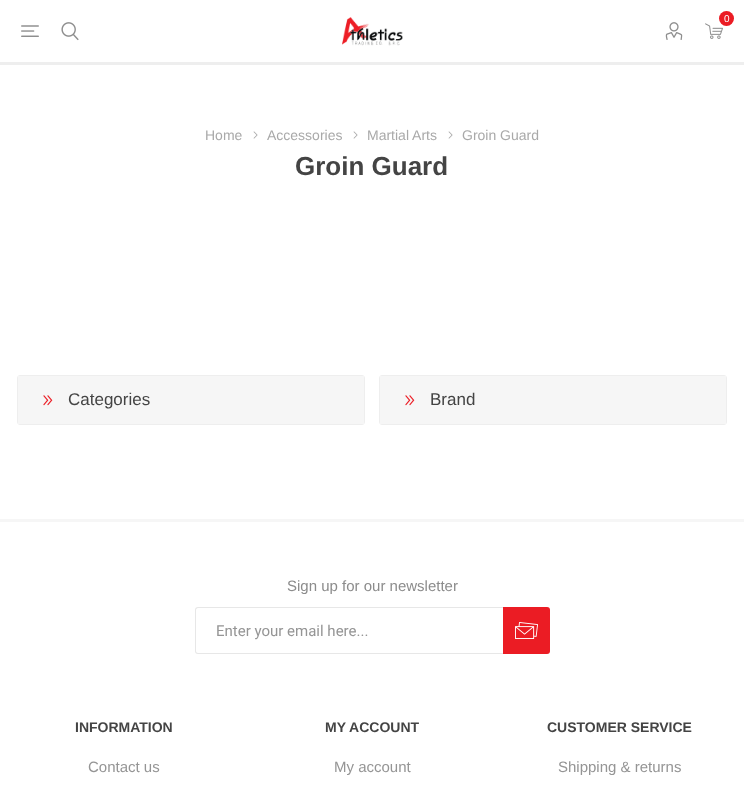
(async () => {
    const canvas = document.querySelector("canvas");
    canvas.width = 744;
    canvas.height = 786;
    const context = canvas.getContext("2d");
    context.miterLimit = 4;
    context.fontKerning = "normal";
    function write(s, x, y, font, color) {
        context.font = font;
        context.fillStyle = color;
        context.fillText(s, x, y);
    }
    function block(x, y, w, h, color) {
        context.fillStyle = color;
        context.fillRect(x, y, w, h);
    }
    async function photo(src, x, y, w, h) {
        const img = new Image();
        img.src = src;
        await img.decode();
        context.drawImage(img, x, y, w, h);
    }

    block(0, 0, 744, 786, "rgb(255, 255, 255)");
    block(0, 62, 744, 3, "rgb(238, 238, 238)");
    await photo("media/1.png", 21, 25, 18, 12);
    await photo("media/2.png", 61, 22, 18, 19);
    await photo("media/3.png", 342, 17, 61, 29);
    await photo("media/4.png", 665, 22, 18, 18);
    await photo("media/5.png", 705, 23, 18, 16);
    context.fillStyle = "rgb(235, 28, 36)";
    context.beginPath();
    context.arc(726.5, 18.5, 7.5, 0, Math.PI * 2);
    context.fill();
    write("0", 724, 22, "10px Liberation Sans", "rgb(255, 255, 255)");
    write("Home", 205, 140, "14px Liberation Sans", "rgb(169, 169, 169)");
    await photo("media/6.png", 253, 131, 5, 8);
    write("Accessories", 267, 140, "14px Liberation Sans", "rgb(169, 169, 169)");
    await photo("media/6.png", 353, 131, 5, 8);
    write("Martial Arts", 367, 140, "14px Liberation Sans", "rgb(169, 169, 169)");
    await photo("media/6.png", 448, 131, 5, 8);
    write("Groin Guard", 462, 140, "14px Liberation Sans", "rgb(169, 169, 169)");
    write("Groin Guard", 295, 175, "bold 26px Liberation Sans", "rgb(68, 68, 68)");
    context.beginPath();
    context.roundRect(17.5, 375.5, 347, 49, 2.5);
    context.strokeStyle = "rgb(238, 238, 238)";
    context.stroke();
    block(18, 376, 346, 48, "rgb(246, 246, 246)");
    await photo("media/7.png", 43, 395, 10, 11);
    write("Categories", 68, 405, "17px Liberation Sans", "rgb(68, 68, 68)");
    context.beginPath();
    context.roundRect(379.5, 375.5, 347, 49, 2.5);
    context.stroke();
    block(380, 376, 346, 48, "rgb(246, 246, 246)");
    await photo("media/8.png", 405, 395, 10, 11);
    write("Brand", 430, 405, "17px Liberation Sans", "rgb(68, 68, 68)");
    block(0, 519, 744, 3, "rgb(246, 246, 246)");
    write("Sign up for our newsletter", 287, 591, "15px Liberation Sans", "rgb(140, 140, 140)");
    context.fillStyle = "rgb(231, 231, 231)";
    context.beginPath();
    context.moveTo(198, 607);
    context.lineTo(503, 607);
    context.lineTo(503, 654);
    context.lineTo(198, 654);
    context.bezierCurveTo(196, 654, 195, 653, 195, 651);
    context.lineTo(195, 610);
    context.bezierCurveTo(195, 608, 196, 607, 198, 607);
    context.closePath();
    context.moveTo(198, 608);
    context.lineTo(503, 608);
    context.lineTo(503, 653);
    context.lineTo(198, 653);
    context.bezierCurveTo(197, 653, 196, 652, 196, 651);
    context.lineTo(196, 610);
    context.bezierCurveTo(196, 609, 197, 608, 198, 608);
    context.closePath();
    context.fill("evenodd");
    write("Enter your email here...", 216, 636, "15px Roboto", "rgb(149, 149, 149)");
    context.fillStyle = "rgb(235, 28, 36)";
    context.beginPath();
    context.roundRect(503, 607, 47, 47, [0, 3, 3, 0]);
    context.fill();
    await photo("media/9.png", 515, 622, 23, 17);
    write("INFORMATION", 75, 732, "bold 14px Liberation Sans", "rgb(68, 68, 68)");
    write("Contact us", 88, 772, "15px Liberation Sans", "rgb(149, 149, 149)");
    write("MY ACCOUNT", 325, 732, "bold 14px Liberation Sans", "rgb(68, 68, 68)");
    write("My account", 334, 772, "15px Liberation Sans", "rgb(149, 149, 149)");
    write("CUSTOMER SERVICE", 547, 732, "bold 14px Liberation Sans", "rgb(68, 68, 68)");
    write("Shipping & returns", 558, 772, "15px Liberation Sans", "rgb(149, 149, 149)");
})();
